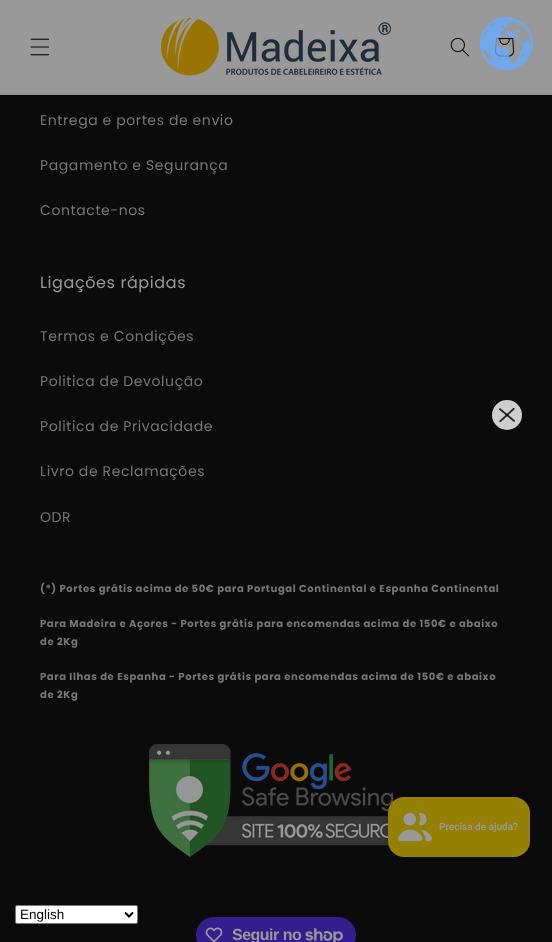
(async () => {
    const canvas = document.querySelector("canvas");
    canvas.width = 552;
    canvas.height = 942;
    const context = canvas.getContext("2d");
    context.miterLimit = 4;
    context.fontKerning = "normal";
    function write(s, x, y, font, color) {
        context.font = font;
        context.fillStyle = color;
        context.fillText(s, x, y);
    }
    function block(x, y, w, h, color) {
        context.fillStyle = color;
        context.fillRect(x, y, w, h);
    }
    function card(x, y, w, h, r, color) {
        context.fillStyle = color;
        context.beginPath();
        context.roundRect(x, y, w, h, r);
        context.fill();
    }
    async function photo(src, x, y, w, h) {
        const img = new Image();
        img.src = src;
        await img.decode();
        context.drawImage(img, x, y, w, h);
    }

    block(0, 0, 552, 942, "rgb(11, 11, 11)");
    block(0, 0, 552, 94, "rgb(153, 153, 153)");
    block(0, 94, 552, 1, "rgb(142, 142, 142)");
    await photo("media/1.png", 30, 38, 20, 18);
    await photo("media/2.png", 161, 18, 230, 58);
    await photo("media/3.png", 450, 37, 19, 20);
    await photo("media/4.png", 495, 38, 20, 19);
    await photo("media/5.png", 479, 16, 54, 54);
    context.letterSpacing = "0.6px";
    write("Entrega e portes de envio", 40, 125, "14px Poppins", "rgb(118, 118, 118)");
    write("Pagamento e Segurança", 40, 170, "14px Poppins", "rgb(118, 118, 118)");
    write("Contacte-nos", 40, 215, "14px Poppins", "rgb(118, 118, 118)");
    write("Ligações rápidas", 40, 288, "16px Poppins", "rgb(153, 153, 153)");
    write("Termos e Condições", 40, 341, "14px Poppins", "rgb(118, 118, 118)");
    write("Politica de Devolução", 40, 386, "14px Poppins", "rgb(118, 118, 118)");
    write("Politica de Privacidade", 40, 431, "14px Poppins", "rgb(118, 118, 118)");
    write("Livro de Reclamações", 40, 476, "14px Poppins", "rgb(118, 118, 118)");
    write("ODR", 40, 522, "14px Poppins", "rgb(118, 118, 118)");
    write("(*) Portes grátis acima de 50€ para Portugal Continental e Espanha Continental", 40, 592, "bold 10.05px Poppins", "rgb(118, 118, 118)");
    write("Para Madeira e Açores - Portes grátis para encomendas acima de 150€ e abaixo", 40, 627, "bold 10.05px Poppins", "rgb(118, 118, 118)");
    write("de 2Kg", 40, 645, "bold 10.05px Poppins", "rgb(118, 118, 118)");
    write("Para Ilhas de Espanha - Portes grátis para encomendas acima de 150€ e abaixo", 40, 680, "bold 10.05px Poppins", "rgb(118, 118, 118)");
    write("de 2Kg", 40, 698, "bold 10.05px Poppins", "rgb(118, 118, 118)");
    await photo("media/6.png", 149, 744, 245, 113);
    card(196, 917, 160, 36, 18, "rgb(50, 31, 141)");
    await photo("media/7.png", 205, 927, 18, 15);
    context.letterSpacing = "-0.5px";
    write("Seguir no", 232, 940, "bold 16px Liberation Sans", "rgb(153, 153, 153)");
    await photo("media/8.png", 305, 928, 38, 14);
    context.fillStyle = "rgb(206, 206, 206)";
    context.beginPath();
    context.arc(507, 415, 15, 0, Math.PI * 2);
    context.fill();
    await photo("media/9.png", 499, 407, 16, 16);
    context.fillStyle = "rgba(0, 0, 0, 0.15)";
    context.filter = "blur(2.5px)";
    context.beginPath();
    context.roundRect(388, 797, 142, 60, 16);
    context.fill();
    context.filter = "none";
    card(388, 797, 142, 60, 16, "rgb(148, 128, 5)");
    await photo("media/10.png", 398, 812, 34, 30);
    context.letterSpacing = "0px";
    write("Precisa de ajuda?", 439, 830, "600 10px Roboto", "rgb(153, 153, 153)");
    context.fillStyle = "rgb(255, 255, 255)";
    context.beginPath();
    context.roundRect(15.5, 905.5, 122, 18, 1.5);
    context.fill();
    context.strokeStyle = "rgb(118, 118, 118)";
    context.stroke();
    context.beginPath();
    context.moveTo(125, 912.5);
    context.lineTo(129, 916.5);
    context.lineTo(133, 912.5);
    context.strokeStyle = "rgb(0, 0, 0)";
    context.lineWidth = 2;
    context.stroke();
    write("English", 20, 919, "13.5px Liberation Sans", "rgb(0, 0, 0)");
})();
